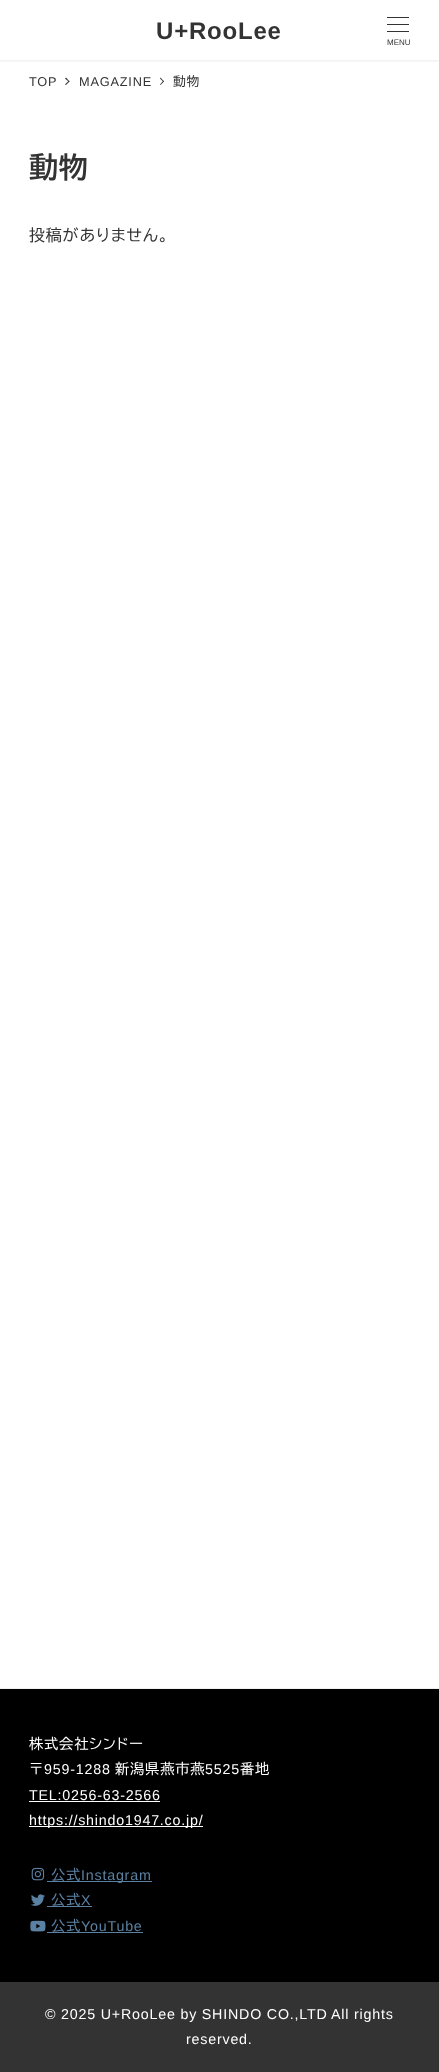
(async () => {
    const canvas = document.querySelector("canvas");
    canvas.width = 439;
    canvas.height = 2072;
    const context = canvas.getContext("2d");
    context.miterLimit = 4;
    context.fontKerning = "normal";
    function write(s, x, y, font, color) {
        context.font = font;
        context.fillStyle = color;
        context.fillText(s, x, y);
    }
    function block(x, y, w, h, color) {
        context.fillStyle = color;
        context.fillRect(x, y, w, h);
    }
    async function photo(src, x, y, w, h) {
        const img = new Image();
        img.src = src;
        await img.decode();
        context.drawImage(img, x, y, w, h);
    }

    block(0, 0, 439, 2072, "rgb(255, 255, 255)");
    context.save();
    context.beginPath();
    context.rect(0, 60, 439, 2);
    context.clip();
    context.fillStyle = "rgba(0, 0, 0, 0.05)";
    context.filter = "blur(1px)";
    context.beginPath();
    context.rect(-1, 0, 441, 62);
    context.fill();
    context.filter = "none";
    context.restore();
    context.letterSpacing = "0.8px";
    write("U+RooLee", 156, 39, "bold 24px Liberation Sans", "rgb(51, 51, 51)");
    block(387, 17, 22, 1, "rgb(51, 51, 51)");
    block(387, 24, 22, 1, "rgb(51, 51, 51)");
    block(387, 31, 22, 1, "rgb(51, 51, 51)");
    context.letterSpacing = "0px";
    write("MENU", 387, 45, "8px Liberation Sans", "rgb(51, 51, 51)");
    context.letterSpacing = "0.8px";
    write("TOP", 29, 86, "12.75px Liberation Sans", "rgb(51, 51, 51)");
    context.beginPath();
    context.moveTo(66, 77.5);
    context.lineTo(69.5, 81.5);
    context.lineTo(69, 82);
    context.lineTo(65, 78.5);
    context.closePath();
    context.fill();
    context.beginPath();
    context.moveTo(69, 80.5);
    context.lineTo(69.5, 81.5);
    context.lineTo(66, 85);
    context.lineTo(65, 84.5);
    context.closePath();
    context.fill();
    write("MAGAZINE", 79, 86, "12.75px Liberation Sans", "rgb(51, 51, 51)");
    context.beginPath();
    context.moveTo(160.5, 77.5);
    context.lineTo(164, 81.5);
    context.lineTo(163.5, 82);
    context.lineTo(160, 78.5);
    context.closePath();
    context.fill();
    context.beginPath();
    context.moveTo(163.5, 80.5);
    context.lineTo(164, 81.5);
    context.lineTo(160.5, 85);
    context.lineTo(160, 84.5);
    context.closePath();
    context.fill();
    write("動物", 173, 86, "12.75px BIZ UDPGothic", "rgb(51, 51, 51)");
    write("動物", 29, 178, "bold 29px BIZ UDPGothic", "rgb(51, 51, 51)");
    write("投稿がありません。", 29, 241, "16px BIZ UDPGothic", "rgb(51, 51, 51)");
    block(0, 1688, 439, 1, "rgb(238, 238, 238)");
    block(0, 1689, 439, 293, "rgb(0, 0, 0)");
    write("株式会社シンドー", 29, 1749, "14.25px BIZ UDPGothic", "rgb(255, 255, 255)");
    write("〒", 29, 1774, "14.25px BIZ UDPGothic", "rgb(255, 255, 255)");
    write("959-1288", 44, 1774, "14.25px Liberation Sans", "rgb(255, 255, 255)");
    write("新潟県燕市燕", 115, 1774, "14.25px BIZ UDPGothic", "rgb(255, 255, 255)");
    write("5525", 205, 1774, "14.25px Liberation Sans", "rgb(255, 255, 255)");
    write("番地", 240, 1774, "14.25px BIZ UDPGothic", "rgb(255, 255, 255)");
    write("TEL:0256-63-2566", 29, 1800, "14.25px Liberation Sans", "rgb(255, 255, 255)");
    block(29, 1801, 131, 1, "rgb(255, 255, 255)");
    block(29, 1826, 174, 1, "rgb(255, 255, 255)");
    write("https://shindo1947.co.jp/", 29, 1825, "14.25px Liberation Sans", "rgb(255, 255, 255)");
    await photo("media/1.png", 31, 1867, 14, 14);
    block(47, 1881, 105, 1, "rgb(91, 129, 162)");
    write("公式", 51, 1880, "14.25px BIZ UDPGothic", "rgb(91, 129, 162)");
    write("Instagram", 81, 1880, "14.25px Liberation Sans", "rgb(91, 129, 162)");
    await photo("media/2.png", 31, 1894, 14, 12);
    block(47, 1906, 45, 1, "rgb(91, 129, 162)");
    write("公式", 51, 1905, "14.25px BIZ UDPGothic", "rgb(91, 129, 162)");
    write("X", 81, 1905, "14.25px Liberation Sans", "rgb(91, 129, 162)");
    await photo("media/3.png", 30, 1920, 16, 12);
    block(47, 1932, 96, 1, "rgb(91, 129, 162)");
    write("公式", 51, 1931, "14.25px BIZ UDPGothic", "rgb(91, 129, 162)");
    write("YouTube", 81, 1931, "14.25px Liberation Sans", "rgb(91, 129, 162)");
    block(0, 1982, 439, 90, "rgb(51, 51, 51)");
    write("© 2025 U+RooLee by SHINDO CO.,LTD", 45, 2019, "14.25px Liberation Sans", "rgb(255, 255, 255)");
    write("All rights", 331, 2019, "14.25px Liberation Sans", "rgb(255, 255, 255)");
    write("reserved.", 186, 2044, "14.25px Liberation Sans", "rgb(255, 255, 255)");
})();
